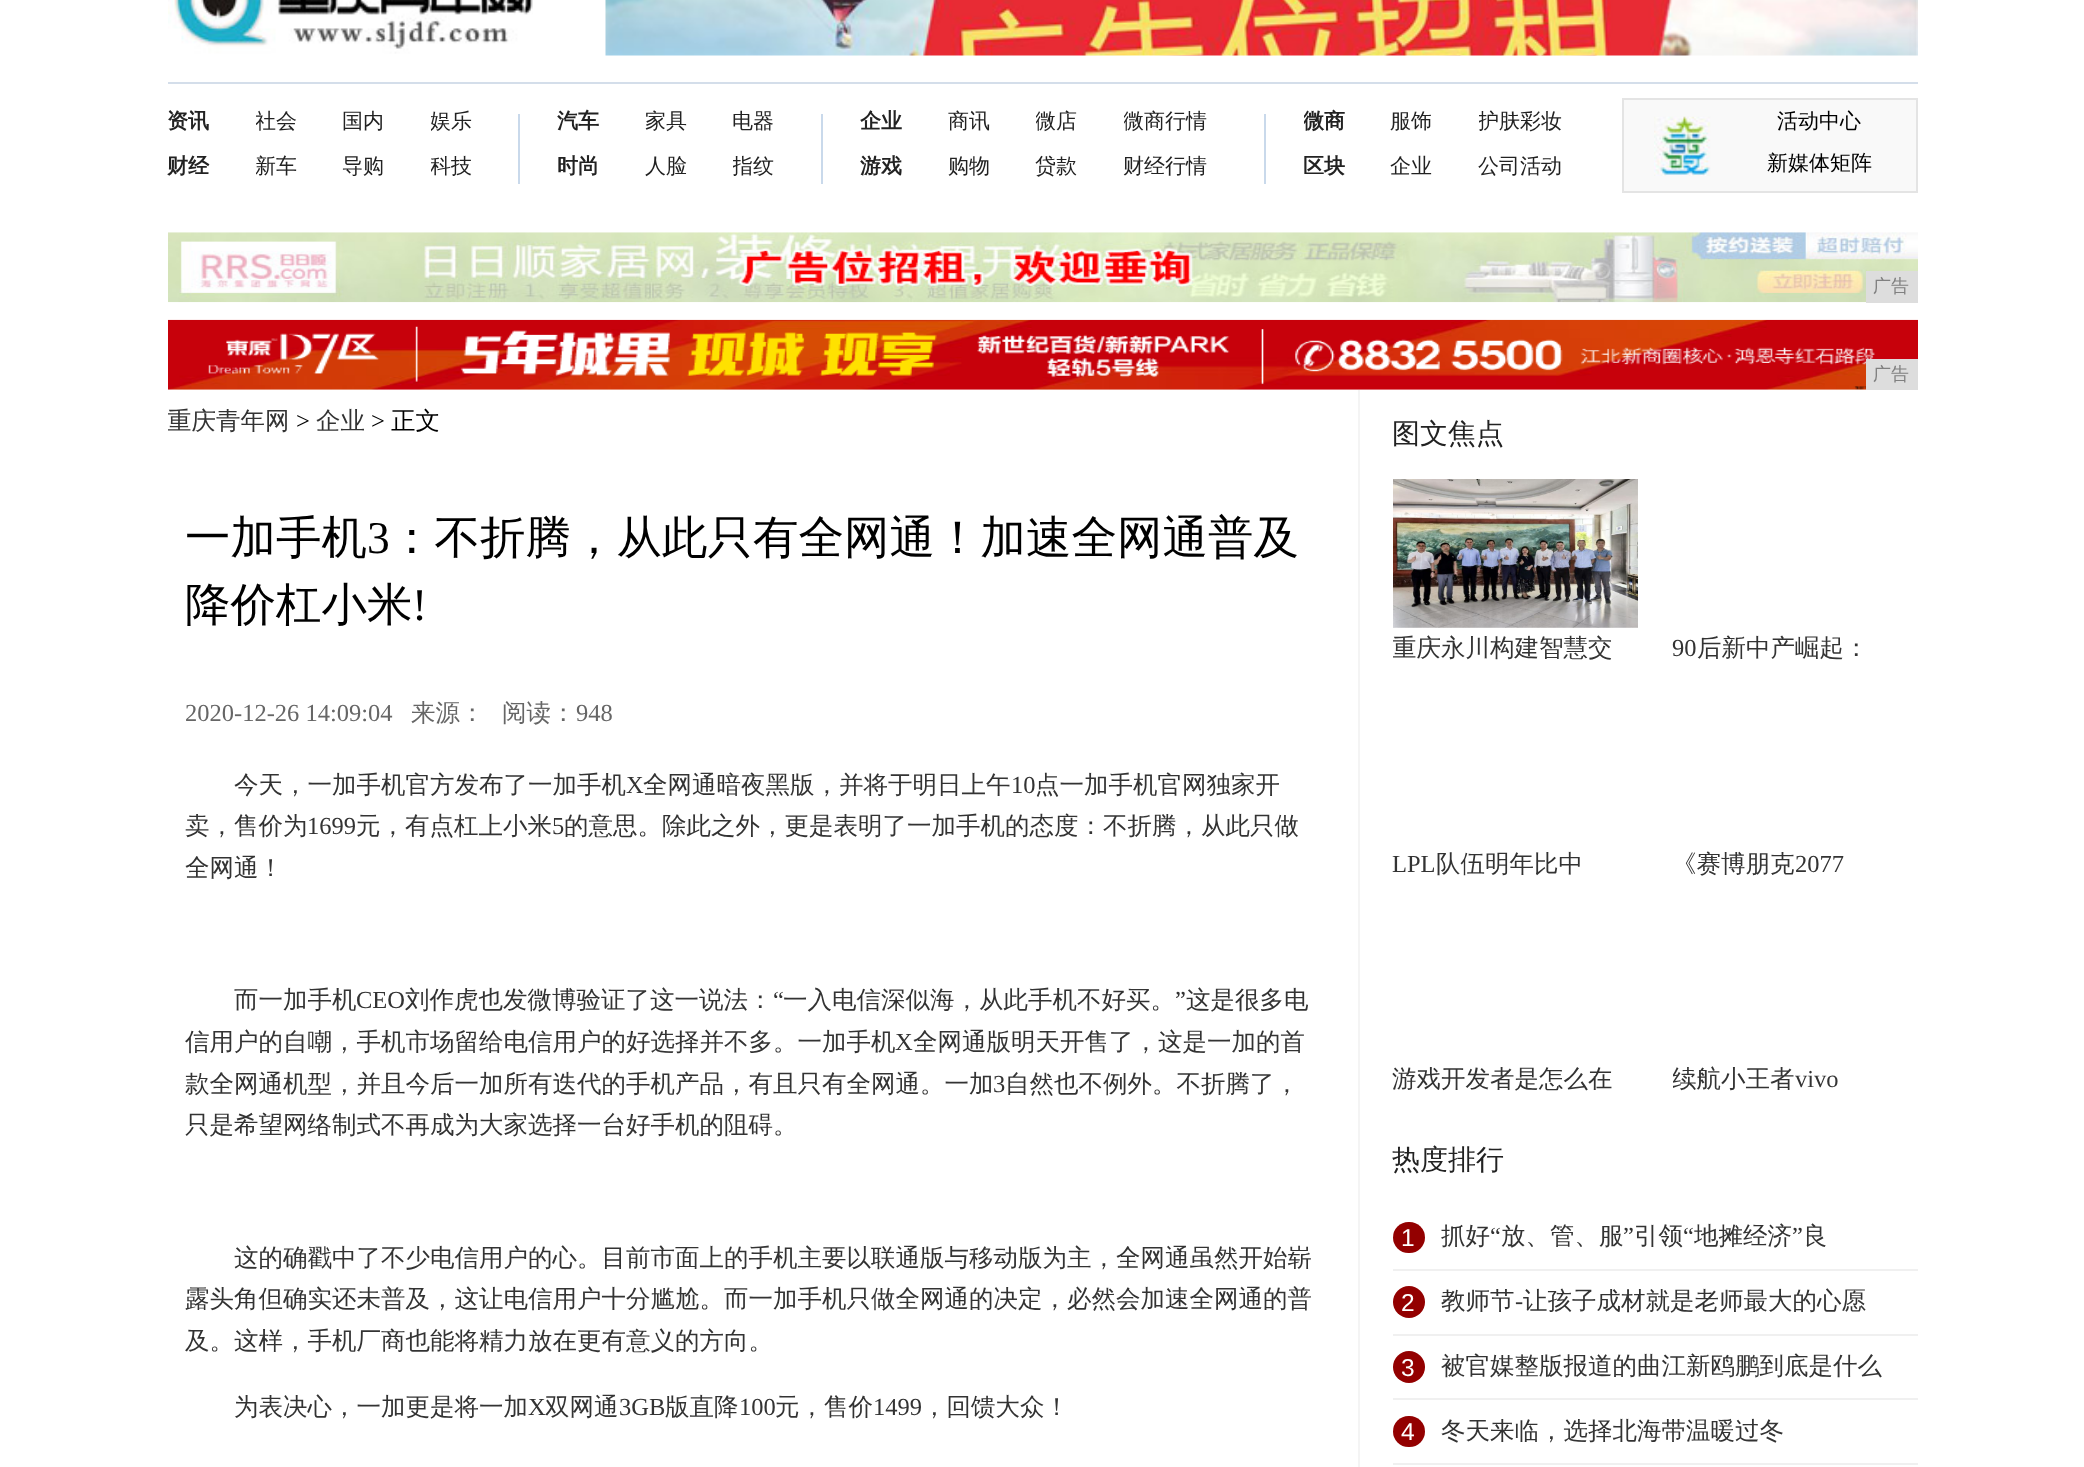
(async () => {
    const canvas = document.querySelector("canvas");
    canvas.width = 2084;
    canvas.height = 1467;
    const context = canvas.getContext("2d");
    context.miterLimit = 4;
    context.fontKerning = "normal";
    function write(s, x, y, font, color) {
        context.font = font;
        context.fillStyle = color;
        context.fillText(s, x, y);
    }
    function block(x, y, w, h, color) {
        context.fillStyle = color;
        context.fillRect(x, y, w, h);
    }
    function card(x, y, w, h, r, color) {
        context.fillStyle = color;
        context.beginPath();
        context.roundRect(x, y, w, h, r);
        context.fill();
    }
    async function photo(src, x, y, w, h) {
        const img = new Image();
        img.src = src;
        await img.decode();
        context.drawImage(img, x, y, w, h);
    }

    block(0, 0, 2084, 1467, "rgb(255, 255, 255)");
    await photo("media/1.png", 168, 0, 365, 54);
    await photo("media/2.png", 605, 0, 1313, 56);
    block(168, 82, 1750, 2, "rgb(212, 222, 234)");
    write("资讯", 167, 128, "bold 21px WenQuanYi Zen Hei", "rgb(34, 34, 34)");
    write("财经", 167, 173, "bold 21px WenQuanYi Zen Hei", "rgb(34, 34, 34)");
    context.save();
    context.beginPath();
    context.rect(256, 98, 87, 91);
    context.clip();
    write("社会", 255, 128, "500 21px WenQuanYi Zen Hei", "rgb(34, 34, 34)");
    write("新车", 255, 173, "500 21px WenQuanYi Zen Hei", "rgb(34, 34, 34)");
    context.restore();
    write("国内", 342, 128, "500 21px WenQuanYi Zen Hei", "rgb(34, 34, 34)");
    write("导购", 342, 173, "500 21px WenQuanYi Zen Hei", "rgb(34, 34, 34)");
    context.save();
    context.beginPath();
    context.rect(431, 98, 87, 91);
    context.clip();
    write("娱乐", 430, 128, "500 21px WenQuanYi Zen Hei", "rgb(34, 34, 34)");
    write("科技", 430, 173, "500 21px WenQuanYi Zen Hei", "rgb(34, 34, 34)");
    context.restore();
    block(518, 114, 2, 70, "rgb(201, 217, 235)");
    write("汽车", 557, 128, "bold 21px WenQuanYi Zen Hei", "rgb(34, 34, 34)");
    write("时尚", 557, 173, "bold 21px WenQuanYi Zen Hei", "rgb(34, 34, 34)");
    write("家具", 645, 128, "500 21px WenQuanYi Zen Hei", "rgb(34, 34, 34)");
    write("人脸", 645, 173, "500 21px WenQuanYi Zen Hei", "rgb(34, 34, 34)");
    write("电器", 732, 128, "500 21px WenQuanYi Zen Hei", "rgb(34, 34, 34)");
    context.save();
    context.beginPath();
    context.rect(733, 98, 88, 91);
    context.clip();
    write("指纹", 732, 173, "500 21px WenQuanYi Zen Hei", "rgb(34, 34, 34)");
    context.restore();
    block(821, 114, 2, 70, "rgb(201, 217, 235)");
    write("企业", 860, 128, "bold 21px WenQuanYi Zen Hei", "rgb(34, 34, 34)");
    write("游戏", 860, 173, "bold 21px WenQuanYi Zen Hei", "rgb(34, 34, 34)");
    write("商讯", 948, 128, "500 21px WenQuanYi Zen Hei", "rgb(34, 34, 34)");
    write("购物", 948, 173, "500 21px WenQuanYi Zen Hei", "rgb(34, 34, 34)");
    context.save();
    context.beginPath();
    context.rect(1036, 98, 88, 91);
    context.clip();
    write("微店", 1035, 128, "500 21px WenQuanYi Zen Hei", "rgb(34, 34, 34)");
    context.restore();
    write("贷款", 1035, 173, "500 21px WenQuanYi Zen Hei", "rgb(34, 34, 34)");
    context.save();
    context.beginPath();
    context.rect(1124, 98, 140, 91);
    context.clip();
    write("微商行情", 1123, 128, "500 21px WenQuanYi Zen Hei", "rgb(34, 34, 34)");
    context.restore();
    write("财经行情", 1123, 173, "500 21px WenQuanYi Zen Hei", "rgb(34, 34, 34)");
    block(1264, 114, 2, 70, "rgb(201, 217, 235)");
    context.save();
    context.beginPath();
    context.rect(1304, 98, 87, 91);
    context.clip();
    write("微商", 1303, 128, "bold 21px WenQuanYi Zen Hei", "rgb(34, 34, 34)");
    context.restore();
    write("区块", 1303, 173, "bold 21px WenQuanYi Zen Hei", "rgb(34, 34, 34)");
    write("服饰", 1390, 128, "500 21px WenQuanYi Zen Hei", "rgb(34, 34, 34)");
    write("企业", 1390, 173, "500 21px WenQuanYi Zen Hei", "rgb(34, 34, 34)");
    context.save();
    context.beginPath();
    context.rect(1479, 98, 140, 91);
    context.clip();
    write("护肤彩妆", 1478, 128, "500 21px WenQuanYi Zen Hei", "rgb(34, 34, 34)");
    context.restore();
    write("公司活动", 1478, 173, "500 21px WenQuanYi Zen Hei", "rgb(34, 34, 34)");
    context.fillStyle = "rgb(249, 249, 249)";
    context.beginPath();
    context.rect(1623, 99, 294, 93);
    context.fill();
    context.strokeStyle = "rgb(228, 228, 228)";
    context.lineWidth = 2;
    context.stroke();
    await photo("media/3.png", 1654, 116, 57, 60);
    write("活动中心", 1777, 128, "500 21px WenQuanYi Zen Hei", "rgb(0, 0, 0)");
    write("新媒体矩阵", 1767, 170, "500 21px WenQuanYi Zen Hei", "rgb(0, 0, 0)");
    await photo("media/4.png", 168, 232, 1750, 71);
    block(1866, 271, 52, 32, "rgb(221, 221, 221)");
    write("广告", 1873, 292, "500 18px WenQuanYi Zen Hei", "rgb(128, 128, 128)");
    await photo("media/5.png", 168, 319, 1750, 71);
    block(1866, 359, 52, 31, "rgb(221, 221, 221)");
    write("广告", 1873, 380, "500 18px WenQuanYi Zen Hei", "rgb(128, 128, 128)");
    block(1358, 390, 2, 1077, "rgb(244, 244, 244)");
    context.save();
    context.beginPath();
    context.rect(168, 390, 1190, 63);
    context.clip();
    write("重庆青年网", 167, 429, "500 24.5px WenQuanYi Zen Hei", "rgb(51, 51, 51)");
    context.restore();
    write(">", 296, 429, "24.5px Liberation Serif", "rgb(0, 0, 0)");
    write("企业", 316, 429, "500 24.5px WenQuanYi Zen Hei", "rgb(51, 51, 51)");
    write(">", 371, 429, "24.5px Liberation Serif", "rgb(0, 0, 0)");
    write("正文", 391, 429, "500 24.5px WenQuanYi Zen Hei", "rgb(0, 0, 0)");
    write("一加手机", 185, 553, "500 45.5px WenQuanYi Zen Hei", "rgb(0, 0, 0)");
    write("3", 367, 553, "45.5px Liberation Serif", "rgb(0, 0, 0)");
    write("：不折腾，从此只有全网通！加速全网通普及", 389, 553, "500 45.5px WenQuanYi Zen Hei", "rgb(0, 0, 0)");
    write("降价杠小米", 185, 620, "500 45.5px WenQuanYi Zen Hei", "rgb(0, 0, 0)");
    write("!", 412, 620, "45.5px Liberation Serif", "rgb(0, 0, 0)");
    write("2020-12-26 14:09:04", 185, 721, "24.5px Liberation Serif", "rgb(102, 102, 102)");
    write("来源：", 411, 721, "500 24.5px WenQuanYi Zen Hei", "rgb(102, 102, 102)");
    write("阅读：", 502, 721, "500 24.5px WenQuanYi Zen Hei", "rgb(102, 102, 102)");
    write("948", 576, 721, "24.5px Liberation Serif", "rgb(102, 102, 102)");
    write("今天，一加手机官方发布了一加手机", 234, 793, "500 24.5px WenQuanYi Zen Hei", "rgb(51, 51, 51)");
    write("X", 626, 793, "24.5px Liberation Serif", "rgb(51, 51, 51)");
    write("全网通暗夜黑版，并将于明日上午", 643, 793, "500 24.5px WenQuanYi Zen Hei", "rgb(51, 51, 51)");
    write("10", 1011, 793, "24.5px Liberation Serif", "rgb(51, 51, 51)");
    write("点一加手机官网独家开", 1035, 793, "500 24.5px WenQuanYi Zen Hei", "rgb(51, 51, 51)");
    write("卖，售价为", 185, 834, "500 24.5px WenQuanYi Zen Hei", "rgb(51, 51, 51)");
    write("1699", 307, 834, "24.5px Liberation Serif", "rgb(51, 51, 51)");
    write("元，有点杠上小米", 356, 834, "500 24.5px WenQuanYi Zen Hei", "rgb(51, 51, 51)");
    write("5", 552, 834, "24.5px Liberation Serif", "rgb(51, 51, 51)");
    write("的意思。除此之外，更是表明了一加手机的态度：不折腾，从此只做", 564, 834, "500 24.5px WenQuanYi Zen Hei", "rgb(51, 51, 51)");
    write("全网通！", 185, 876, "500 24.5px WenQuanYi Zen Hei", "rgb(51, 51, 51)");
    write("而一加手机", 234, 1008, "500 24.5px WenQuanYi Zen Hei", "rgb(51, 51, 51)");
    write("CEO", 356, 1008, "24.5px Liberation Serif", "rgb(51, 51, 51)");
    write("刘作虎也发微博验证了这一说法：", 405, 1008, "500 24.5px WenQuanYi Zen Hei", "rgb(51, 51, 51)");
    write("“", 773, 1008, "24.5px Liberation Serif", "rgb(51, 51, 51)");
    write("一入电信深似海，从此手机不好买。", 783, 1008, "500 24.5px WenQuanYi Zen Hei", "rgb(51, 51, 51)");
    write("”", 1175, 1008, "24.5px Liberation Serif", "rgb(51, 51, 51)");
    write("这是很多电", 1186, 1008, "500 24.5px WenQuanYi Zen Hei", "rgb(51, 51, 51)");
    write("信用户的自嘲，手机市场留给电信用户的好选择并不多。一加手机", 185, 1050, "500 24.5px WenQuanYi Zen Hei", "rgb(51, 51, 51)");
    write("X", 895, 1050, "24.5px Liberation Serif", "rgb(51, 51, 51)");
    write("全网通版明天开售了，这是一加的首", 913, 1050, "500 24.5px WenQuanYi Zen Hei", "rgb(51, 51, 51)");
    write("款全网通机型，并且今后一加所有迭代的手机产品，有且只有全网通。一加", 185, 1092, "500 24.5px WenQuanYi Zen Hei", "rgb(51, 51, 51)");
    write("3", 993, 1092, "24.5px Liberation Serif", "rgb(51, 51, 51)");
    write("自然也不例外。不折腾了，", 1005, 1092, "500 24.5px WenQuanYi Zen Hei", "rgb(51, 51, 51)");
    write("只是希望网络制式不再成为大家选择一台好手机的阻碍。", 185, 1133, "500 24.5px WenQuanYi Zen Hei", "rgb(51, 51, 51)");
    write("这的确戳中了不少电信用户的心。目前市面上的手机主要以联通版与移动版为主，全网通虽然开始崭", 234, 1266, "500 24.5px WenQuanYi Zen Hei", "rgb(51, 51, 51)");
    write("露头角但确实还未普及，这让电信用户十分尴尬。而一加手机只做全网通的决定，必然会加速全网通的普", 185, 1307, "500 24.5px WenQuanYi Zen Hei", "rgb(51, 51, 51)");
    write("及。这样，手机厂商也能将精力放在更有意义的方向。", 185, 1349, "500 24.5px WenQuanYi Zen Hei", "rgb(51, 51, 51)");
    write("为表决心，一加更是将一加", 234, 1415, "500 24.5px WenQuanYi Zen Hei", "rgb(51, 51, 51)");
    write("X", 528, 1415, "24.5px Liberation Serif", "rgb(51, 51, 51)");
    write("双网通", 545, 1415, "500 24.5px WenQuanYi Zen Hei", "rgb(51, 51, 51)");
    write("3GB", 619, 1415, "24.5px Liberation Serif", "rgb(51, 51, 51)");
    write("版直降", 665, 1415, "500 24.5px WenQuanYi Zen Hei", "rgb(51, 51, 51)");
    write("100", 739, 1415, "24.5px Liberation Serif", "rgb(51, 51, 51)");
    write("元，售价", 775, 1415, "500 24.5px WenQuanYi Zen Hei", "rgb(51, 51, 51)");
    write("1499", 873, 1415, "24.5px Liberation Serif", "rgb(51, 51, 51)");
    write("，回馈大众！", 922, 1415, "500 24.5px WenQuanYi Zen Hei", "rgb(51, 51, 51)");
    write("图文焦点", 1392, 443, "500 28px WenQuanYi Zen Hei", "rgb(34, 34, 34)");
    await photo("media/6.png", 1393, 479, 245, 149);
    context.save();
    context.beginPath();
    context.rect(1393, 480, 245, 215);
    context.clip();
    write("重庆永川构建智慧交", 1392, 656, "500 24.5px WenQuanYi Zen Hei", "rgb(51, 51, 51)");
    context.restore();
    write("90", 1672, 656, "24.5px Liberation Serif", "rgb(51, 51, 51)");
    write("后新中产崛起：", 1697, 656, "500 24.5px WenQuanYi Zen Hei", "rgb(51, 51, 51)");
    write("LPL", 1392, 872, "24.5px Liberation Serif", "rgb(51, 51, 51)");
    write("队伍明年比中", 1436, 872, "500 24.5px WenQuanYi Zen Hei", "rgb(51, 51, 51)");
    write("《赛博朋克", 1672, 872, "500 24.5px WenQuanYi Zen Hei", "rgb(51, 51, 51)");
    write("2077", 1795, 872, "24.5px Liberation Serif", "rgb(51, 51, 51)");
    write("游戏开发者是怎么在", 1392, 1087, "500 24.5px WenQuanYi Zen Hei", "rgb(51, 51, 51)");
    context.save();
    context.beginPath();
    context.rect(1673, 910, 245, 215);
    context.clip();
    write("续航小王者", 1672, 1087, "500 24.5px WenQuanYi Zen Hei", "rgb(51, 51, 51)");
    context.restore();
    write("vivo", 1795, 1087, "24.5px Liberation Serif", "rgb(51, 51, 51)");
    write("热度排行", 1392, 1169, "500 28px WenQuanYi Zen Hei", "rgb(34, 34, 34)");
    block(1393, 1269, 525, 2, "rgb(240, 240, 240)");
    card(1393, 1222, 32, 31, 15.5, "rgb(147, 0, 0)");
    write("1", 1401, 1246, "24.5px Liberation Sans", "rgb(255, 255, 255)");
    write("抓好", 1441, 1244, "500 24.5px WenQuanYi Zen Hei", "rgb(51, 51, 51)");
    write("“", 1490, 1244, "24.5px Liberation Serif", "rgb(51, 51, 51)");
    write("放、管、服", 1501, 1244, "500 24.5px WenQuanYi Zen Hei", "rgb(51, 51, 51)");
    write("”", 1623, 1244, "24.5px Liberation Serif", "rgb(51, 51, 51)");
    write("引领", 1634, 1244, "500 24.5px WenQuanYi Zen Hei", "rgb(51, 51, 51)");
    write("“", 1683, 1244, "24.5px Liberation Serif", "rgb(51, 51, 51)");
    write("地摊经济", 1694, 1244, "500 24.5px WenQuanYi Zen Hei", "rgb(51, 51, 51)");
    write("”", 1792, 1244, "24.5px Liberation Serif", "rgb(51, 51, 51)");
    write("良", 1803, 1244, "500 24.5px WenQuanYi Zen Hei", "rgb(51, 51, 51)");
    block(1393, 1334, 525, 2, "rgb(240, 240, 240)");
    context.fillStyle = "rgb(147, 0, 0)";
    context.beginPath();
    context.arc(1409, 1302, 16, 0, Math.PI * 2);
    context.fill();
    write("2", 1401, 1311, "24.5px Liberation Sans", "rgb(255, 255, 255)");
    write("教师节", 1441, 1309, "500 24.5px WenQuanYi Zen Hei", "rgb(51, 51, 51)");
    write("-", 1515, 1309, "24.5px Liberation Serif", "rgb(51, 51, 51)");
    write("让孩子成材就是老师最大的心愿", 1523, 1309, "500 24.5px WenQuanYi Zen Hei", "rgb(51, 51, 51)");
    block(1393, 1398, 525, 2, "rgb(240, 240, 240)");
    context.fillStyle = "rgb(147, 0, 0)";
    context.beginPath();
    context.arc(1409, 1367, 16, 0, Math.PI * 2);
    context.fill();
    write("3", 1401, 1376, "24.5px Liberation Sans", "rgb(255, 255, 255)");
    write("被官媒整版报道的曲江新鸥鹏到底是什么", 1441, 1374, "500 24.5px WenQuanYi Zen Hei", "rgb(51, 51, 51)");
    block(1393, 1463, 525, 2, "rgb(240, 240, 240)");
    card(1393, 1416, 32, 31, 15.5, "rgb(147, 0, 0)");
    write("4", 1401, 1440, "24.5px Liberation Sans", "rgb(255, 255, 255)");
    write("冬天来临，选择北海带温暖过冬", 1441, 1439, "500 24.5px WenQuanYi Zen Hei", "rgb(51, 51, 51)");
})();
